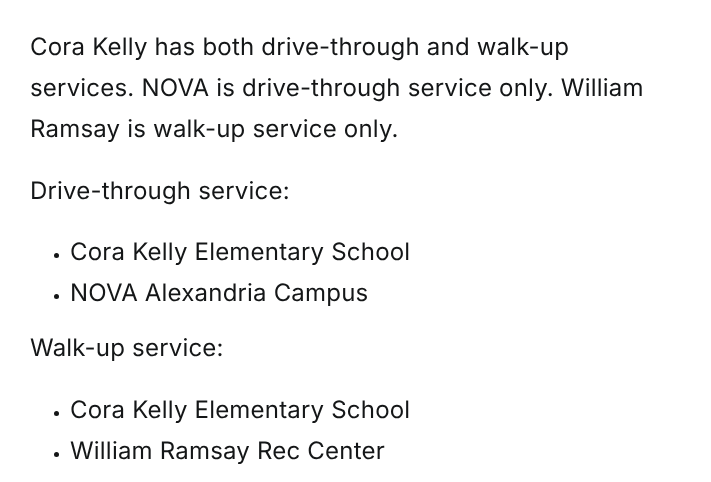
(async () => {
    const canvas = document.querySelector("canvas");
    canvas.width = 711;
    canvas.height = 482;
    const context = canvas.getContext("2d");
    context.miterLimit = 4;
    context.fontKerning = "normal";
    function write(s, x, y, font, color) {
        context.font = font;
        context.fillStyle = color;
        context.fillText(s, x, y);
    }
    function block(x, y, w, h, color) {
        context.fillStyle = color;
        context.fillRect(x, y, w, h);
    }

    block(0, 0, 711, 482, "rgb(255, 255, 255)");
    context.letterSpacing = "0.2px";
    write("Cora Kelly has both drive-through and walk-up", 30, 55, "24px Inter", "rgb(20, 22, 23)");
    write("services. NOVA is drive-through service only. William", 30, 96, "24px Inter", "rgb(20, 22, 23)");
    write("Ramsay is walk-up service only.", 30, 137, "24px Inter", "rgb(20, 22, 23)");
    write("Drive-through service:", 30, 199, "24px Inter", "rgb(20, 22, 23)");
    context.beginPath();
    context.arc(56.5, 255.5, 2.5, 0, Math.PI * 2);
    context.fill();
    write("Cora Kelly Elementary School", 70, 260, "24px Inter", "rgb(20, 22, 23)");
    context.beginPath();
    context.arc(56.5, 296.5, 2.5, 0, Math.PI * 2);
    context.fill();
    write("NOVA Alexandria Campus", 70, 301, "24px Inter", "rgb(20, 22, 23)");
    write("Walk-up service:", 30, 356, "24px Inter", "rgb(20, 22, 23)");
    context.beginPath();
    context.arc(56.5, 413.5, 2.5, 0, Math.PI * 2);
    context.fill();
    write("Cora Kelly Elementary School", 70, 418, "24px Inter", "rgb(20, 22, 23)");
    context.beginPath();
    context.arc(56.5, 454.5, 2.5, 0, Math.PI * 2);
    context.fill();
    write("William Ramsay Rec Center", 70, 459, "24px Inter", "rgb(20, 22, 23)");
})();
